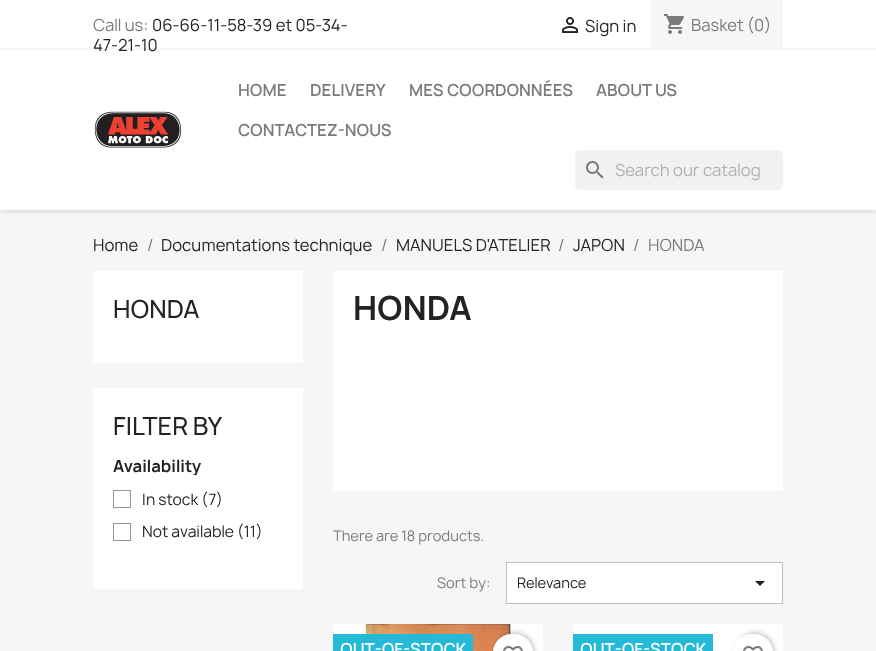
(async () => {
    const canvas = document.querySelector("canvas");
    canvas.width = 876;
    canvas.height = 651;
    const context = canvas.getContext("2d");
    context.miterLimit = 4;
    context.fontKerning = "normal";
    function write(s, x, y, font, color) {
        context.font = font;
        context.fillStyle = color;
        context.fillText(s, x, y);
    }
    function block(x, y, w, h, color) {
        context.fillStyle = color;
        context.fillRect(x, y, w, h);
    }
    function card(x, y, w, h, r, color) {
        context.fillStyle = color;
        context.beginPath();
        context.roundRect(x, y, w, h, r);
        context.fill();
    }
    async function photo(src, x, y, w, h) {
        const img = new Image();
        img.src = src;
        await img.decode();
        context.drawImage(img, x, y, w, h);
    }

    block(0, 0, 876, 651, "rgb(255, 255, 255)");
    block(0, 210, 876, 441, "rgb(246, 246, 246)");
    context.save();
    context.beginPath();
    context.rect(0, 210, 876, 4);
    context.clip();
    context.fillStyle = "rgba(0, 0, 0, 0.11)";
    context.filter = "blur(2.5px)";
    context.beginPath();
    context.rect(0, 2, 876, 210);
    context.fill();
    context.filter = "none";
    context.restore();
    block(0, 48, 876, 2, "rgb(246, 246, 246)");
    write("Call us:", 93, 31, "16px Manrope", "rgb(122, 122, 122)");
    write("06-66-11-58-39 et 05-34-", 152, 31, "16px Manrope", "rgb(35, 35, 35)");
    write("47-21-10", 93, 51, "16px Manrope", "rgb(35, 35, 35)");
    await photo("media/1.png", 562, 17, 16, 16);
    write("Sign in", 585, 32, "16px Manrope", "rgb(35, 35, 35)");
    block(651, 0, 132, 48, "rgb(246, 246, 246)");
    await photo("media/2.png", 664, 14, 20, 20);
    write("Basket (0)", 691, 31, "16px Manrope", "rgb(122, 122, 122)");
    await photo("media/3.png", 94, 111, 88, 37);
    write("HOME", 238, 96, "600 16px Manrope", "rgb(122, 122, 122)");
    write("DELIVERY", 310, 96, "600 16px Manrope", "rgb(122, 122, 122)");
    write("MES COORDONNÉES", 409, 96, "600 16px Manrope", "rgb(122, 122, 122)");
    write("ABOUT US", 596, 96, "600 16px Manrope", "rgb(122, 122, 122)");
    write("CONTACTEZ-NOUS", 238, 136, "600 16px Manrope", "rgb(122, 122, 122)");
    card(575, 150, 208, 40, 5, "rgb(241, 241, 241)");
    await photo("media/4.png", 586, 161, 18, 18);
    write("Search our catalog", 615, 176, "16px Manrope", "rgb(177, 177, 177)");
    write("Home", 93, 251, "16px Manrope", "rgb(35, 35, 35)");
    write("/", 147, 251, "16px Manrope", "rgb(122, 122, 122)");
    write("Documentations technique", 161, 251, "16px Manrope", "rgb(35, 35, 35)");
    write("/", 381, 251, "16px Manrope", "rgb(122, 122, 122)");
    write("MANUELS D'ATELIER", 396, 251, "16px Manrope", "rgb(35, 35, 35)");
    write("/", 558, 251, "16px Manrope", "rgb(122, 122, 122)");
    write("JAPON", 573, 251, "16px Manrope", "rgb(35, 35, 35)");
    write("/", 633, 251, "16px Manrope", "rgb(122, 122, 122)");
    write("HONDA", 648, 251, "16px Manrope", "rgb(122, 122, 122)");
    block(93, 271, 210, 92, "rgb(255, 255, 255)");
    write("HONDA", 113, 318, "500 24px Manrope", "rgb(35, 35, 35)");
    block(93, 388, 210, 201, "rgb(255, 255, 255)");
    write("FILTER BY", 113, 435, "500 24px Manrope", "rgb(35, 35, 35)");
    context.save();
    context.beginPath();
    context.rect(113, 458, 140, 17);
    context.clip();
    write("Availability", 113, 472, "bold 16px Manrope", "rgb(35, 35, 35)");
    context.restore();
    context.strokeStyle = "rgb(151, 151, 151)";
    context.strokeRect(113.5, 490.5, 17, 17);
    write("In stock (7)", 142, 505, "15px Manrope", "rgb(35, 35, 35)");
    context.strokeRect(113.5, 523.5, 17, 17);
    write("Not available (11)", 142, 537, "15px Manrope", "rgb(35, 35, 35)");
    block(333, 271, 450, 220, "rgb(255, 255, 255)");
    write("HONDA", 353, 320, "bold 32px Manrope", "rgb(35, 35, 35)");
    write("There are 18 products.", 333, 541, "14px Manrope", "rgb(122, 122, 122)");
    write("Sort by:", 437, 588, "14px Manrope", "rgb(122, 122, 122)");
    context.fillStyle = "rgb(255, 255, 255)";
    context.beginPath();
    context.rect(506.5, 562.5, 276, 41);
    context.fill();
    context.strokeStyle = "rgb(191, 191, 191)";
    context.stroke();
    write("Relevance", 517, 588, "14px Manrope", "rgb(35, 35, 35)");
    context.beginPath();
    context.moveTo(755, 581);
    context.lineTo(765, 581);
    context.lineTo(760, 586);
    context.closePath();
    context.fill();
    block(333, 624, 210, 27, "rgb(255, 255, 255)");
    await photo("media/5.png", 364, 624, 154, 27);
    block(333, 634, 140, 17, "rgb(36, 185, 215)");
    write("OUT-OF-STOCK", 340, 655, "600 16px Manrope", "rgb(255, 255, 255)");
    context.fillStyle = "rgba(0, 0, 0, 0.2)";
    context.filter = "blur(2px)";
    context.beginPath();
    context.roundRect(495, 632, 40, 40, 20);
    context.fill();
    context.filter = "none";
    card(493, 634, 40, 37, 20, "rgb(255, 255, 255)");
    await photo("media/6.png", 503, 646, 20, 5);
    block(573, 624, 210, 27, "rgb(255, 255, 255)");
    block(573, 634, 140, 17, "rgb(36, 185, 215)");
    write("OUT-OF-STOCK", 580, 655, "600 16px Manrope", "rgb(255, 255, 255)");
    context.fillStyle = "rgba(0, 0, 0, 0.2)";
    context.filter = "blur(2px)";
    context.beginPath();
    context.roundRect(735, 632, 40, 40, 20);
    context.fill();
    context.filter = "none";
    card(733, 634, 40, 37, 20, "rgb(255, 255, 255)");
    await photo("media/6.png", 743, 646, 20, 5);
})();
